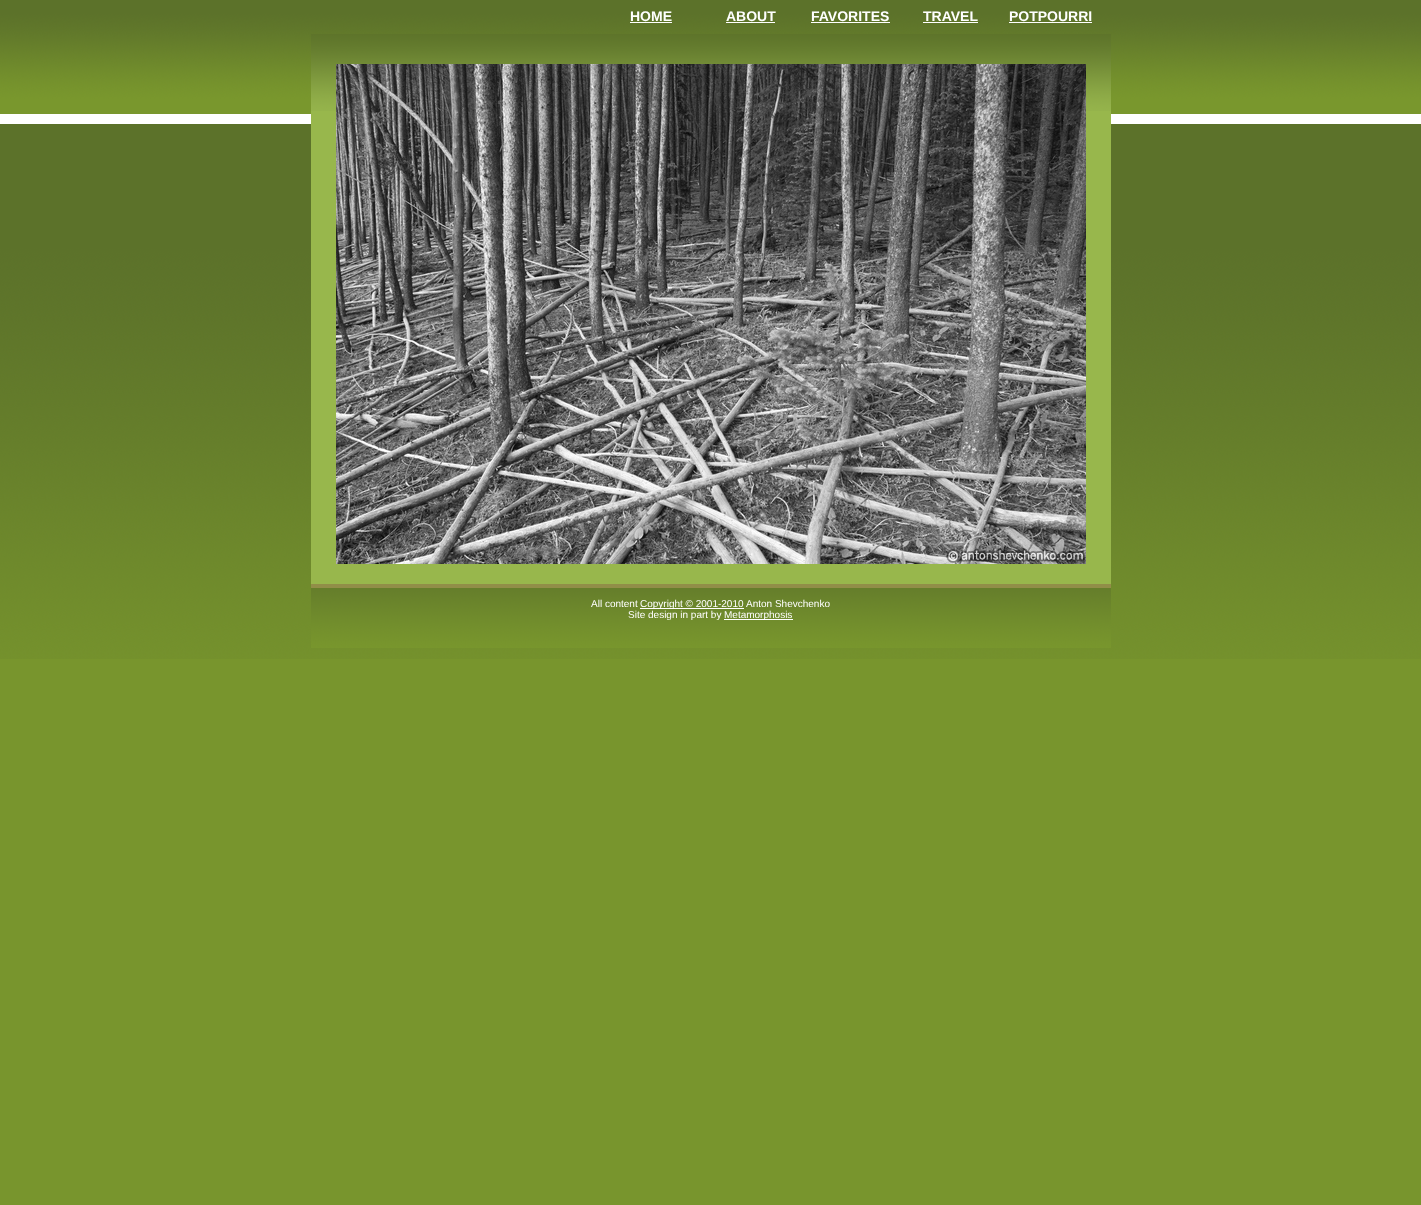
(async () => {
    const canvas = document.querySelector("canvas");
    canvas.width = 1421;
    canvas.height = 1205;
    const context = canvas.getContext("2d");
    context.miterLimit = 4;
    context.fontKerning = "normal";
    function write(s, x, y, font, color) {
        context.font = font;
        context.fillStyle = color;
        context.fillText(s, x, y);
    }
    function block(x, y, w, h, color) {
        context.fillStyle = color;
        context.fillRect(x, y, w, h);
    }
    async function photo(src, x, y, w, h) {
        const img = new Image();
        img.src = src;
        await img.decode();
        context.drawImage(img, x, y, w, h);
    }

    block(0, 0, 1421, 1205, "rgb(120, 149, 45)");
    await photo("media/1.png", 0, 0, 1421, 659);
    write("HOME", 630, 21, "bold 14px Liberation Sans", "rgb(255, 255, 255)");
    block(630, 22, 42, 1, "rgb(255, 255, 255)");
    write("ABOUT", 726, 21, "bold 14px Liberation Sans", "rgb(255, 255, 255)");
    block(726, 22, 49, 1, "rgb(255, 255, 255)");
    write("FAVORITES", 811, 21, "bold 14px Liberation Sans", "rgb(255, 255, 255)");
    block(811, 22, 79, 1, "rgb(255, 255, 255)");
    write("TRAVEL", 923, 21, "bold 14px Liberation Sans", "rgb(255, 255, 255)");
    block(923, 22, 55, 1, "rgb(255, 255, 255)");
    write("POTPOURRI", 1009, 21, "bold 14px Liberation Sans", "rgb(255, 255, 255)");
    block(1009, 22, 83, 1, "rgb(255, 255, 255)");
    block(311, 111, 800, 473, "rgb(152, 183, 76)");
    await photo("media/2.png", 311, 34, 800, 77);
    await photo("media/3.png", 336, 64, 750, 500);
    await photo("media/4.png", 311, 588, 800, 60);
    block(311, 584, 800, 4, "rgb(145, 142, 72)");
    write("All content", 591, 607, "10px Liberation Sans", "rgb(255, 255, 255)");
    block(640, 608, 104, 1, "rgb(255, 255, 255)");
    write("Copyright © 2001-2010", 640, 607, "10px Liberation Sans", "rgb(255, 255, 255)");
    write("Anton Shevchenko", 746, 607, "10px Liberation Sans", "rgb(255, 255, 255)");
    write("Site design in part by", 628, 618, "10px Liberation Sans", "rgb(255, 255, 255)");
    block(724, 619, 69, 1, "rgb(255, 255, 255)");
    write("Metamorphosis", 724, 618, "10px Liberation Sans", "rgb(255, 255, 255)");
})();
